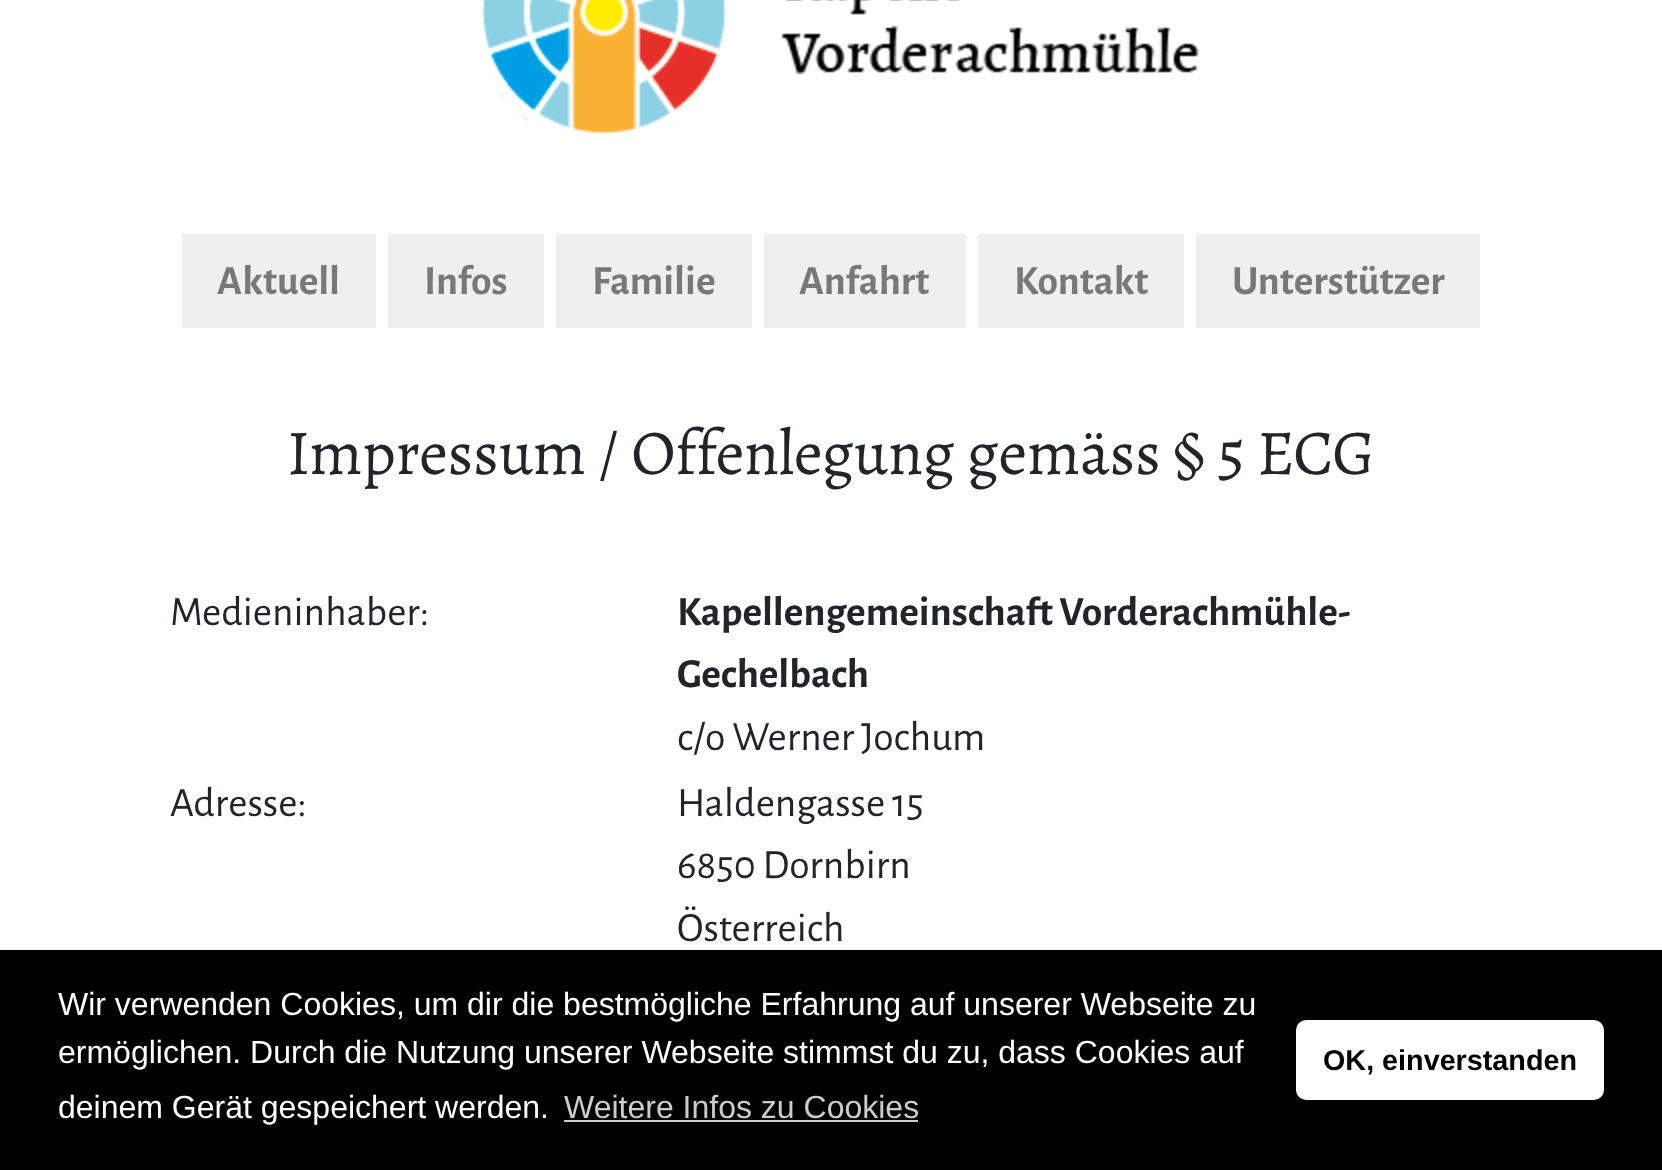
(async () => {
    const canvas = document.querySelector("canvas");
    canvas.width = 1662;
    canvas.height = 1170;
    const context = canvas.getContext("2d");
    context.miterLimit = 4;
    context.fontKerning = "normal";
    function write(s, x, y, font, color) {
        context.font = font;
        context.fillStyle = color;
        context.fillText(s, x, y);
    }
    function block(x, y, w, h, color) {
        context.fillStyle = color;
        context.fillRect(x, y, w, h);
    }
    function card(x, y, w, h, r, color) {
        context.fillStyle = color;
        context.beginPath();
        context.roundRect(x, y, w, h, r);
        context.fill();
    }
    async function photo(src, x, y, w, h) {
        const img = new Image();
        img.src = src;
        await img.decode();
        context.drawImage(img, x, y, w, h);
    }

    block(0, 0, 1662, 1170, "rgb(255, 255, 255)");
    await photo("media/1.png", 481, 0, 718, 135);
    block(182, 234, 194, 94, "rgb(239, 239, 239)");
    write("Aktuell", 217, 294, "bold 41.6px Alegreya Sans", "rgb(120, 120, 120)");
    block(388, 234, 156, 94, "rgb(239, 239, 239)");
    write("Infos", 424, 294, "bold 41.6px Alegreya Sans", "rgb(120, 120, 120)");
    block(556, 234, 196, 94, "rgb(239, 239, 239)");
    write("Familie", 592, 294, "bold 41.6px Alegreya Sans", "rgb(120, 120, 120)");
    block(764, 234, 202, 94, "rgb(239, 239, 239)");
    write("Anfahrt", 799, 294, "bold 41.6px Alegreya Sans", "rgb(120, 120, 120)");
    block(978, 234, 206, 94, "rgb(239, 239, 239)");
    write("Kontakt", 1014, 294, "bold 41.6px Alegreya Sans", "rgb(120, 120, 120)");
    block(1196, 234, 284, 94, "rgb(239, 239, 239)");
    write("Unterstützer", 1232, 294, "bold 41.6px Alegreya Sans", "rgb(120, 120, 120)");
    context.letterSpacing = "-0.3px";
    write("Impressum / Offenlegung gemäss § 5 ECG", 287, 474, "64px Alegreya", "rgb(33, 37, 41)");
    context.letterSpacing = "0px";
    write("Medieninhaber:", 170, 625, "41.6px Alegreya Sans", "rgb(33, 37, 41)");
    write("Kapellengemeinschaft Vorderachmühle-", 677, 625, "bold 41.6px Alegreya Sans", "rgb(33, 37, 41)");
    write("Gechelbach", 677, 687, "bold 41.6px Alegreya Sans", "rgb(33, 37, 41)");
    write("c/o Werner Jochum", 677, 750, "41.6px Alegreya Sans", "rgb(33, 37, 41)");
    write("Adresse:", 170, 816, "41.6px Alegreya Sans", "rgb(33, 37, 41)");
    write("Haldengasse 15", 677, 816, "41.6px Alegreya Sans", "rgb(33, 37, 41)");
    write("6850 Dornbirn", 677, 878, "41.6px Alegreya Sans", "rgb(33, 37, 41)");
    write("Österreich", 677, 941, "41.6px Alegreya Sans", "rgb(33, 37, 41)");
    block(0, 950, 1662, 220, "rgb(0, 0, 0)");
    write("Wir verwenden Cookies, um dir die bestmögliche Erfahrung auf unserer Webseite zu", 58, 1015, "32px Liberation Sans", "rgb(255, 255, 255)");
    write("ermöglichen. Durch die Nutzung unserer Webseite stimmst du zu, dass Cookies auf", 58, 1063, "32px Liberation Sans", "rgb(255, 255, 255)");
    write("deinem Gerät gespeichert werden.", 58, 1118, "32px Liberation Sans", "rgb(255, 255, 255)");
    write("Weitere Infos zu Cookies", 564, 1118, "32px Liberation Sans", "rgb(204, 204, 204)");
    block(564, 1120, 354, 2, "rgb(204, 204, 204)");
    card(1296, 1020, 308, 80, 10, "rgb(255, 255, 255)");
    write("OK, einverstanden", 1323, 1070, "bold 28.75px Liberation Sans", "rgb(0, 0, 0)");
})();
